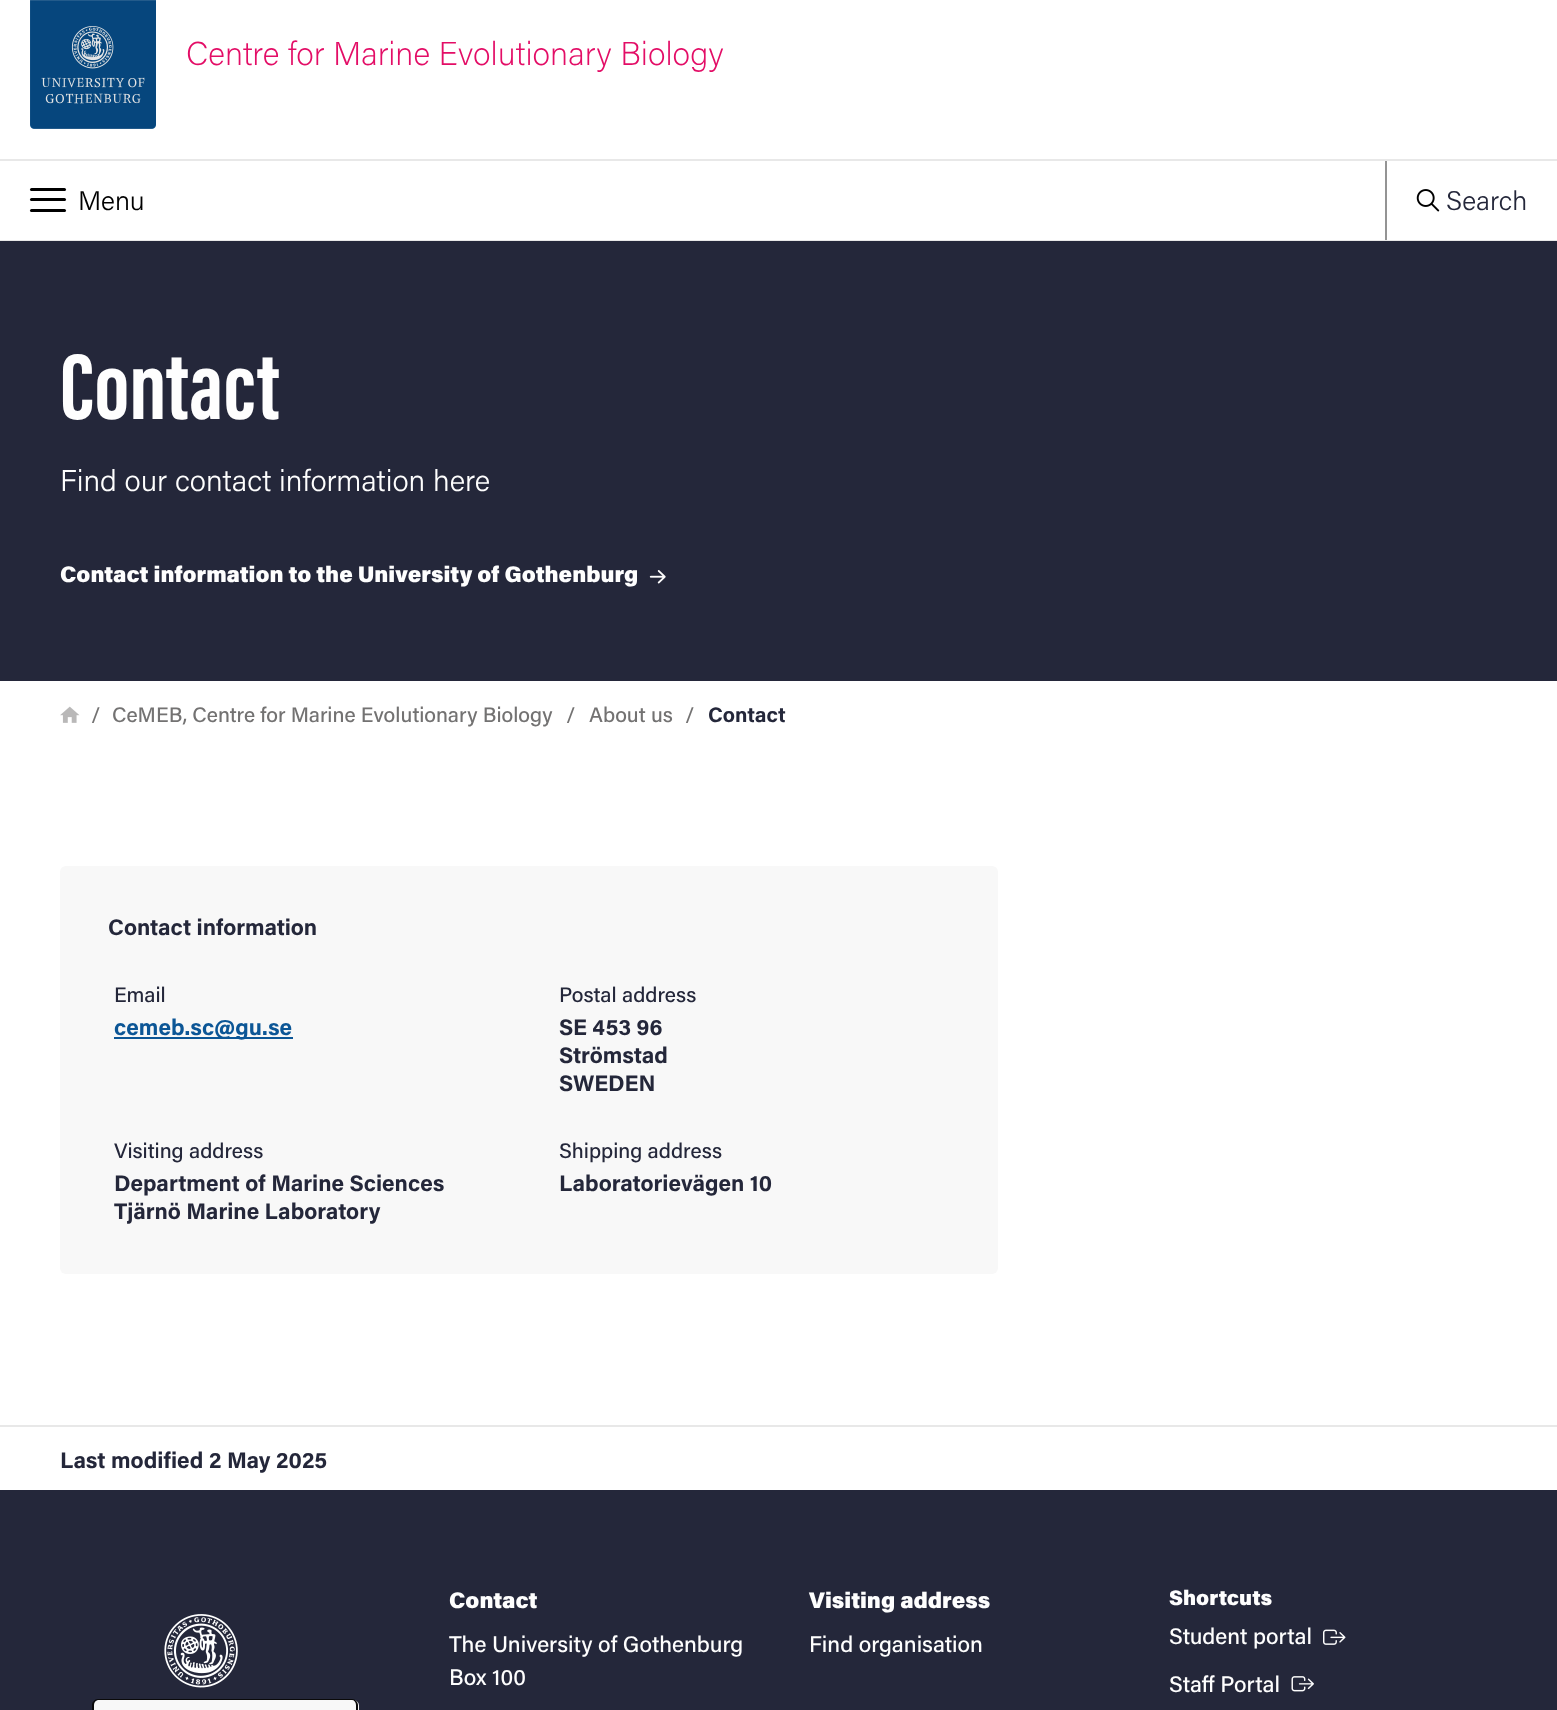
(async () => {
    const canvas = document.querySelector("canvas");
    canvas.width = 1557;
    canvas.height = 1710;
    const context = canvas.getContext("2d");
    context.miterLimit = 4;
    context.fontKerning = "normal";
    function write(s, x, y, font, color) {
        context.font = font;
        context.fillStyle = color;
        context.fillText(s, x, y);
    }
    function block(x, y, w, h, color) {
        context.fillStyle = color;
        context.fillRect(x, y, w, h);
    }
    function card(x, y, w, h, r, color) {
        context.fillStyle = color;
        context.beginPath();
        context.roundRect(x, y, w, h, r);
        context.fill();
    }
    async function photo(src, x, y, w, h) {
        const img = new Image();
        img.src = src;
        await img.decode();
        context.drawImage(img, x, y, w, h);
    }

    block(0, 0, 1557, 1710, "rgb(255, 255, 255)");
    block(0, 240, 1557, 1, "rgb(232, 232, 232)");
    block(0, 159, 1557, 2, "rgb(232, 232, 232)");
    await photo("media/1.png", 30, 0, 126, 129);
    context.fillStyle = "rgba(0, 0, 0, 0.1)";
    context.beginPath();
    context.roundRect(30, 0, 126, 129, [0, 0, 6, 6]);
    context.fill();
    write("Centre for Marine Evolutionary Biology", 186, 65, "200 33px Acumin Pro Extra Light", "rgb(227, 13, 102)");
    card(30, 188, 36, 3, 1.5, "rgb(0, 0, 0)");
    card(30, 198, 36, 3, 1.5, "rgb(0, 0, 0)");
    card(30, 209, 36, 3, 1.5, "rgb(0, 0, 0)");
    write("Menu", 78, 210, "300 27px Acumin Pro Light", "rgb(0, 0, 0)");
    block(1385, 161, 2, 79, "rgb(148, 148, 148)");
    await photo("media/2.png", 1416, 189, 24, 23);
    write("Search", 1446, 210, "300 27px Acumin Pro Light", "rgb(36, 39, 58)");
    block(0, 241, 1557, 440, "rgb(36, 39, 58)");
    write("Contact", 60, 419, "bold 96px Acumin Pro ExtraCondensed", "rgb(254, 254, 254)");
    write("Find our contact information here", 60, 491, "300 30px Acumin Pro Light", "rgb(254, 254, 254)");
    write("Contact information to the University of Gothenburg", 60, 582, "900 22.5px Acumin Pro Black", "rgb(254, 254, 254)");
    await photo("media/3.png", 649, 570, 17, 14);
    await photo("media/4.png", 60, 706, 20, 17);
    write("/", 91, 722, "500 21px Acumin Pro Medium", "rgb(115, 114, 114)");
    write("CeMEB, Centre for Marine Evolutionary Biology", 112, 722, "500 21px Acumin Pro Medium", "rgb(115, 114, 114)");
    write("/", 566, 722, "500 21px Acumin Pro Medium", "rgb(115, 114, 114)");
    write("About us", 589, 722, "500 21px Acumin Pro Medium", "rgb(115, 114, 114)");
    write("/", 685, 722, "500 21px Acumin Pro Medium", "rgb(115, 114, 114)");
    write("Contact", 708, 722, "bold 21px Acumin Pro", "rgb(36, 39, 58)");
    card(60, 866, 938, 408, 6, "rgb(248, 248, 248)");
    write("Contact information", 108, 935, "bold 22.5px Acumin Pro", "rgb(36, 39, 58)");
    write("Email", 114, 1002, "500 21px Acumin Pro Medium", "rgb(36, 39, 58)");
    block(114, 1037, 179, 2, "rgb(12, 86, 150)");
    write("cemeb.sc@gu.se", 114, 1035, "bold 22.5px Acumin Pro", "rgb(12, 86, 150)");
    write("Postal address", 559, 1002, "500 21px Acumin Pro Medium", "rgb(36, 39, 58)");
    write("SE 453 96", 559, 1035, "bold 22.5px Acumin Pro", "rgb(36, 39, 58)");
    write("Strömstad", 559, 1063, "bold 22.5px Acumin Pro", "rgb(36, 39, 58)");
    write("SWEDEN", 559, 1091, "bold 22.5px Acumin Pro", "rgb(36, 39, 58)");
    write("Visiting address", 114, 1158, "500 21px Acumin Pro Medium", "rgb(36, 39, 58)");
    write("Department of Marine Sciences", 114, 1191, "bold 22.5px Acumin Pro", "rgb(36, 39, 58)");
    write("Tjärnö Marine Laboratory", 114, 1219, "bold 22.5px Acumin Pro", "rgb(36, 39, 58)");
    write("Shipping address", 559, 1158, "500 21px Acumin Pro Medium", "rgb(36, 39, 58)");
    write("Laboratorievägen 10", 559, 1191, "bold 22.5px Acumin Pro", "rgb(36, 39, 58)");
    block(0, 1425, 1557, 2, "rgb(232, 232, 232)");
    write("Last modified", 60, 1468, "bold 22.5px Acumin Pro", "rgb(36, 39, 58)");
    write("2 May 2025", 209, 1468, "bold 22.5px Acumin Pro", "rgb(36, 39, 58)");
    block(0, 1490, 1557, 220, "rgb(36, 39, 58)");
    await photo("media/5.png", 164, 1614, 74, 74);
    write("Contact", 449, 1608, "900 22.5px Acumin Pro Black", "rgb(254, 254, 254)");
    write("The University of Gothenburg", 449, 1652, "500 22.5px Acumin Pro Medium", "rgb(254, 254, 254)");
    write("Box 100", 449, 1685, "500 22.5px Acumin Pro Medium", "rgb(254, 254, 254)");
    write("Visiting address", 809, 1608, "900 22.5px Acumin Pro Black", "rgb(254, 254, 254)");
    write("Find organisation", 809, 1652, "500 22.5px Acumin Pro Medium", "rgb(254, 254, 254)");
    write("Shortcuts", 1169, 1605, "900 21px Acumin Pro Black", "rgb(254, 254, 254)");
    write("Student portal", 1169, 1644, "500 22.5px Acumin Pro Medium", "rgb(254, 254, 254)");
    await photo("media/6.png", 1323, 1629, 23, 16);
    write("Staff Portal", 1169, 1692, "500 22.5px Acumin Pro Medium", "rgb(254, 254, 254)");
    await photo("media/7.png", 1291, 1676, 23, 16);
    context.fillStyle = "rgb(248, 248, 248)";
    context.beginPath();
    context.moveTo(99, 1700);
    context.lineTo(353, 1700);
    context.bezierCurveTo(356.5, 1700, 359, 1702.5, 359, 1706);
    context.lineTo(359, 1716);
    context.lineTo(93, 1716);
    context.lineTo(93, 1706);
    context.bezierCurveTo(93, 1702.5, 95.5, 1700, 99, 1700);
    context.closePath();
    context.fill();
    context.fillStyle = "rgb(10, 10, 10)";
    context.beginPath();
    context.moveTo(98, 1699);
    context.lineTo(352, 1699);
    context.bezierCurveTo(355, 1699, 358, 1702, 358, 1705);
    context.lineTo(358, 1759);
    context.lineTo(92, 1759);
    context.lineTo(92, 1705);
    context.bezierCurveTo(92, 1702, 95, 1699, 98, 1699);
    context.closePath();
    context.moveTo(98, 1700);
    context.lineTo(352, 1700);
    context.bezierCurveTo(354, 1700, 356, 1702, 356, 1705);
    context.lineTo(356, 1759);
    context.lineTo(94, 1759);
    context.lineTo(94, 1705);
    context.bezierCurveTo(94, 1702, 96, 1700, 98, 1700);
    context.closePath();
    context.fill("evenodd");
})();
